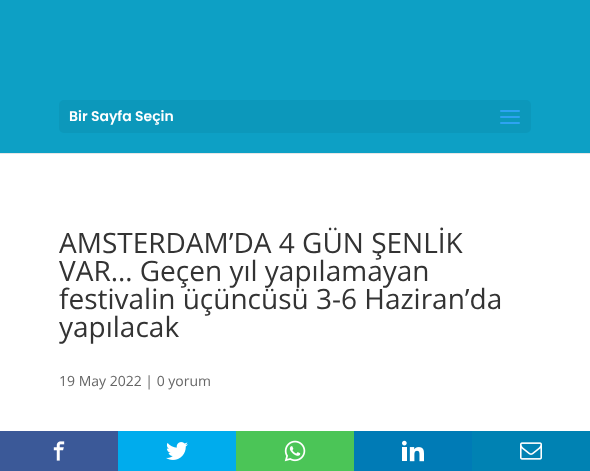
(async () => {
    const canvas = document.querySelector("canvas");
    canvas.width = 590;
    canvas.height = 471;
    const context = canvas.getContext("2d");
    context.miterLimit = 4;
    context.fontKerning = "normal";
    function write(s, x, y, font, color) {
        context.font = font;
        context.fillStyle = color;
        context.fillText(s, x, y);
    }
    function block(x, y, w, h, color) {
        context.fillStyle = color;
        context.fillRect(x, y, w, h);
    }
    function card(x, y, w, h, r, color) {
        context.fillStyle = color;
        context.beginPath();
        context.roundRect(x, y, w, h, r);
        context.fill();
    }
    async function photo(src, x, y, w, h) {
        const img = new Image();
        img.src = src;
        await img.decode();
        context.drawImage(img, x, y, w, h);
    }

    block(0, 0, 590, 471, "rgb(255, 255, 255)");
    block(0, 153, 590, 1, "rgb(230, 230, 230)");
    block(0, 0, 590, 153, "rgb(13, 160, 197)");
    card(59, 100, 472, 33, 5, "rgb(12, 152, 187)");
    write("Bir Sayfa Seçin", 69, 121, "600 14px Poppins", "rgb(255, 255, 255)");
    await photo("media/1.png", 500, 110, 20, 14);
    write("AMSTERDAM’DA 4 GÜN ŞENLİK", 59, 253, "28px Open Sans", "rgb(51, 51, 51)");
    write("VAR… Geçen yıl yapılamayan", 59, 281, "28px Open Sans", "rgb(51, 51, 51)");
    write("festivalin üçüncüsü 3-6 Haziran’da", 59, 309, "28px Open Sans", "rgb(51, 51, 51)");
    write("yapılacak", 59, 337, "28px Open Sans", "rgb(51, 51, 51)");
    write("19 May 2022 | 0 yorum", 59, 386, "14px Open Sans", "rgb(102, 102, 102)");
    block(0, 431, 118, 40, "rgb(59, 89, 152)");
    await photo("media/2.png", 53, 441, 12, 20);
    block(118, 431, 118, 40, "rgb(0, 172, 237)");
    await photo("media/3.png", 166, 442, 22, 18);
    block(236, 431, 118, 40, "rgb(75, 197, 87)");
    await photo("media/4.png", 284, 440, 22, 22);
    block(354, 431, 118, 40, "rgb(0, 123, 182)");
    await photo("media/5.png", 402, 440, 22, 22);
    block(472, 431, 118, 40, "rgb(0, 130, 179)");
    await photo("media/6.png", 520, 442, 22, 18);
})();
